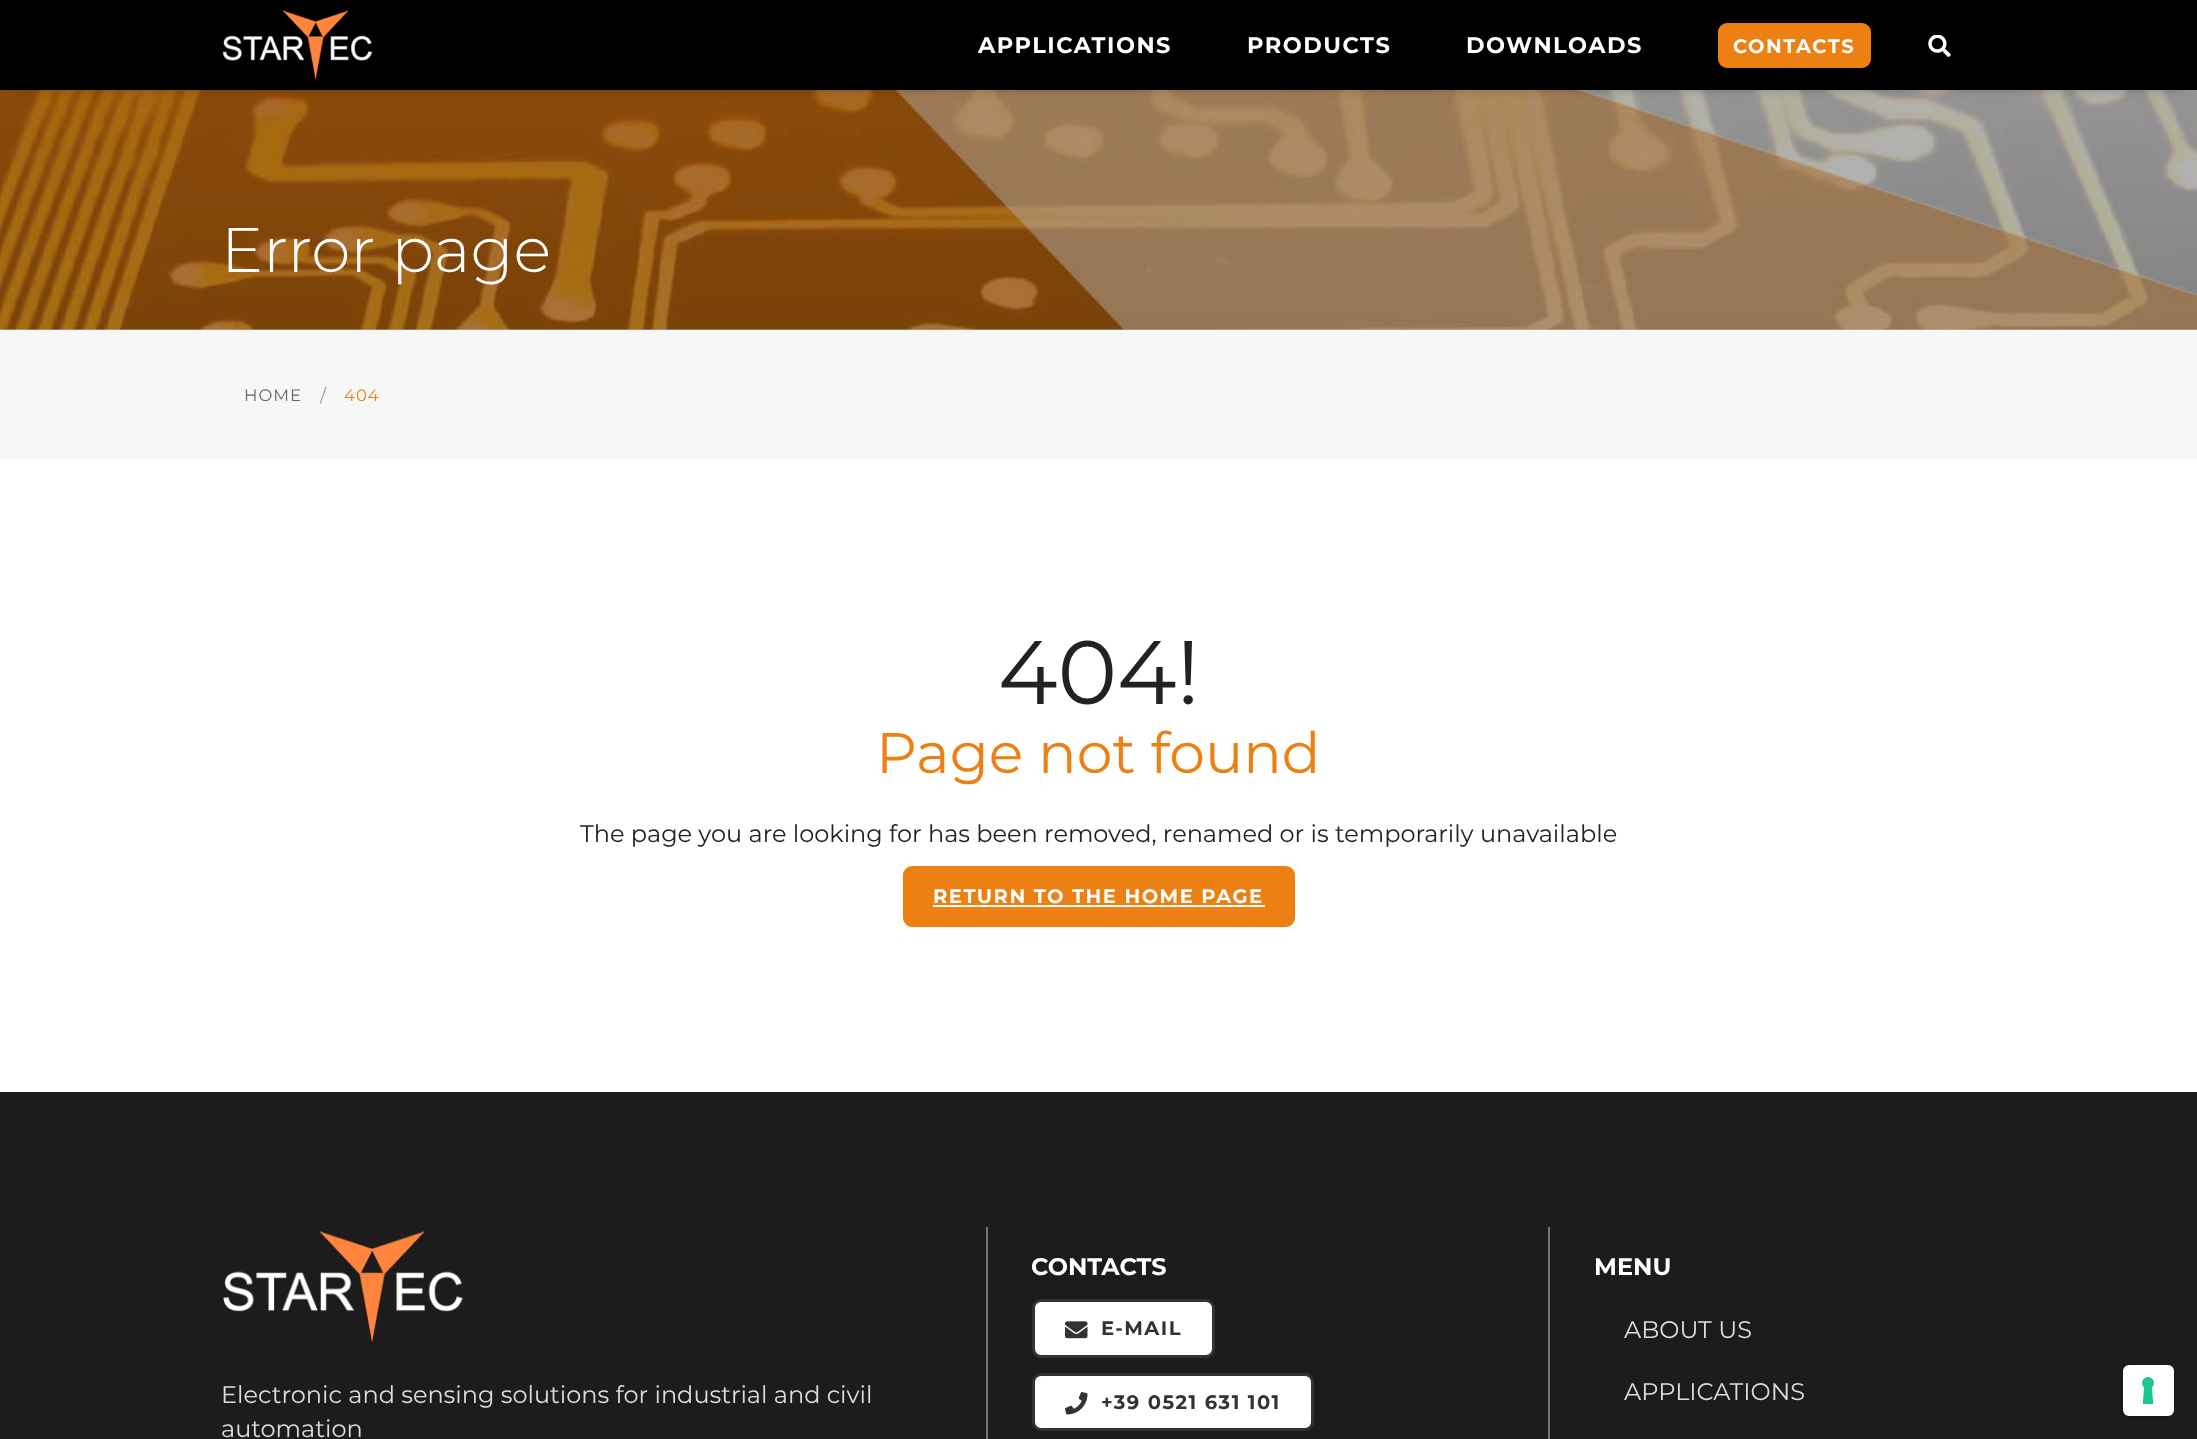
(async () => {
    const canvas = document.querySelector("canvas");
    canvas.width = 2197;
    canvas.height = 1439;
    const context = canvas.getContext("2d");
    context.miterLimit = 4;
    context.fontKerning = "normal";
    function write(s, x, y, font, color) {
        context.font = font;
        context.fillStyle = color;
        context.fillText(s, x, y);
    }
    function block(x, y, w, h, color) {
        context.fillStyle = color;
        context.fillRect(x, y, w, h);
    }
    function card(x, y, w, h, r, color) {
        context.fillStyle = color;
        context.beginPath();
        context.roundRect(x, y, w, h, r);
        context.fill();
    }
    async function photo(src, x, y, w, h) {
        const img = new Image();
        img.src = src;
        await img.decode();
        context.drawImage(img, x, y, w, h);
    }

    block(0, 0, 2197, 1439, "rgb(255, 255, 255)");
    block(0, 329, 2197, 1, "rgb(179, 179, 179)");
    await photo("media/3.png", 0, 90, 2197, 240);
    context.fillStyle = "rgba(0, 0, 0, 0.6)";
    context.filter = "blur(7.5px)";
    context.beginPath();
    context.rect(15, 23, 2168, 60);
    context.fill();
    context.filter = "none";
    block(0, 0, 2197, 90, "rgb(0, 0, 0)");
    await photo("media/1.png", 222, 10, 151, 70);
    context.letterSpacing = "1.5px";
    write("APPLICATIONS", 978, 53, "bold 22.5px Montserrat", "rgb(255, 255, 255)");
    write("PRODUCTS", 1247, 53, "bold 22.5px Montserrat", "rgb(255, 255, 255)");
    write("DOWNLOADS", 1466, 53, "bold 22.5px Montserrat", "rgb(255, 255, 255)");
    card(1718, 23, 153, 45, 9, "rgb(237, 128, 19)");
    write("CONTACTS", 1733, 53, "bold 19.5px Montserrat", "rgb(255, 255, 255)");
    await photo("media/2.png", 1928, 35, 23, 22);
    context.letterSpacing = "0px";
    write("Error page", 221, 272, "300 63px Montserrat", "rgb(255, 255, 255)");
    block(0, 330, 2197, 129, "rgb(247, 247, 247)");
    context.letterSpacing = "1px";
    write("HOME", 244, 401, "16.5px Montserrat", "rgb(102, 102, 102)");
    write("/", 320, 402, "18px Montserrat", "rgb(153, 153, 153)");
    write("404", 344, 401, "16.5px Montserrat", "rgb(237, 128, 19)");
    context.letterSpacing = "0px";
    write("404!", 998, 704, "90px Montserrat", "rgb(34, 34, 34)");
    write("Page not found", 876, 773, "57px Montserrat", "rgb(237, 128, 19)");
    write("The page you are looking for has been removed, renamed or is temporarily unavailable", 580, 842, "24px Montserrat", "rgb(34, 34, 34)");
    card(903, 866, 392, 61, 9, "rgb(237, 128, 19)");
    context.letterSpacing = "1.5px";
    write("RETURN TO THE HOME PAGE", 933, 903, "bold 19.5px Montserrat", "rgb(255, 255, 255)");
    block(933, 905, 332, 2, "rgb(255, 255, 255)");
    block(0, 1092, 2197, 347, "rgb(28, 28, 28)");
    block(986, 1227, 2, 212, "rgb(117, 117, 117)");
    await photo("media/4.png", 223, 1231, 241, 111);
    context.letterSpacing = "0px";
    write("Electronic and sensing solutions for industrial and civil", 221, 1403, "24px Montserrat", "rgb(221, 221, 221)");
    write("automation", 221, 1437, "24px Montserrat", "rgb(221, 221, 221)");
    block(1548, 1227, 2, 212, "rgb(117, 117, 117)");
    write("CONTACTS", 1031, 1275, "bold 24px Montserrat", "rgb(255, 255, 255)");
    context.beginPath();
    context.roundRect(1033.5, 1300.5, 180, 56, 7.5);
    context.fill();
    context.strokeStyle = "rgb(51, 51, 51)";
    context.lineWidth = 3;
    context.stroke();
    await photo("media/5.png", 1065, 1321, 23, 18);
    context.letterSpacing = "1.5px";
    write("E-MAIL", 1101, 1335, "bold 19.5px Montserrat", "rgb(51, 51, 51)");
    context.fillStyle = "rgb(255, 255, 255)";
    context.beginPath();
    context.roundRect(1033.5, 1374.5, 279, 55, 7.5);
    context.fill();
    context.stroke();
    await photo("media/6.png", 1065, 1392, 23, 23);
    write("+39 0521 631 101", 1101, 1409, "bold 19.5px Montserrat", "rgb(51, 51, 51)");
    context.letterSpacing = "0px";
    write("MENU", 1594, 1275, "bold 24px Montserrat", "rgb(255, 255, 255)");
    write("ABOUT US", 1624, 1338, "24px Montserrat", "rgb(221, 221, 221)");
    write("APPLICATIONS", 1624, 1400, "24px Montserrat", "rgb(221, 221, 221)");
    context.beginPath();
    context.roundRect(2122, 1365, 52, 52, 7);
    context.strokeStyle = "rgb(24, 24, 24)";
    context.lineWidth = 2;
    context.stroke();
    card(2123, 1365, 51, 51, 6, "rgb(255, 255, 255)");
    await photo("media/7.png", 2142, 1377, 12, 27);
})();
